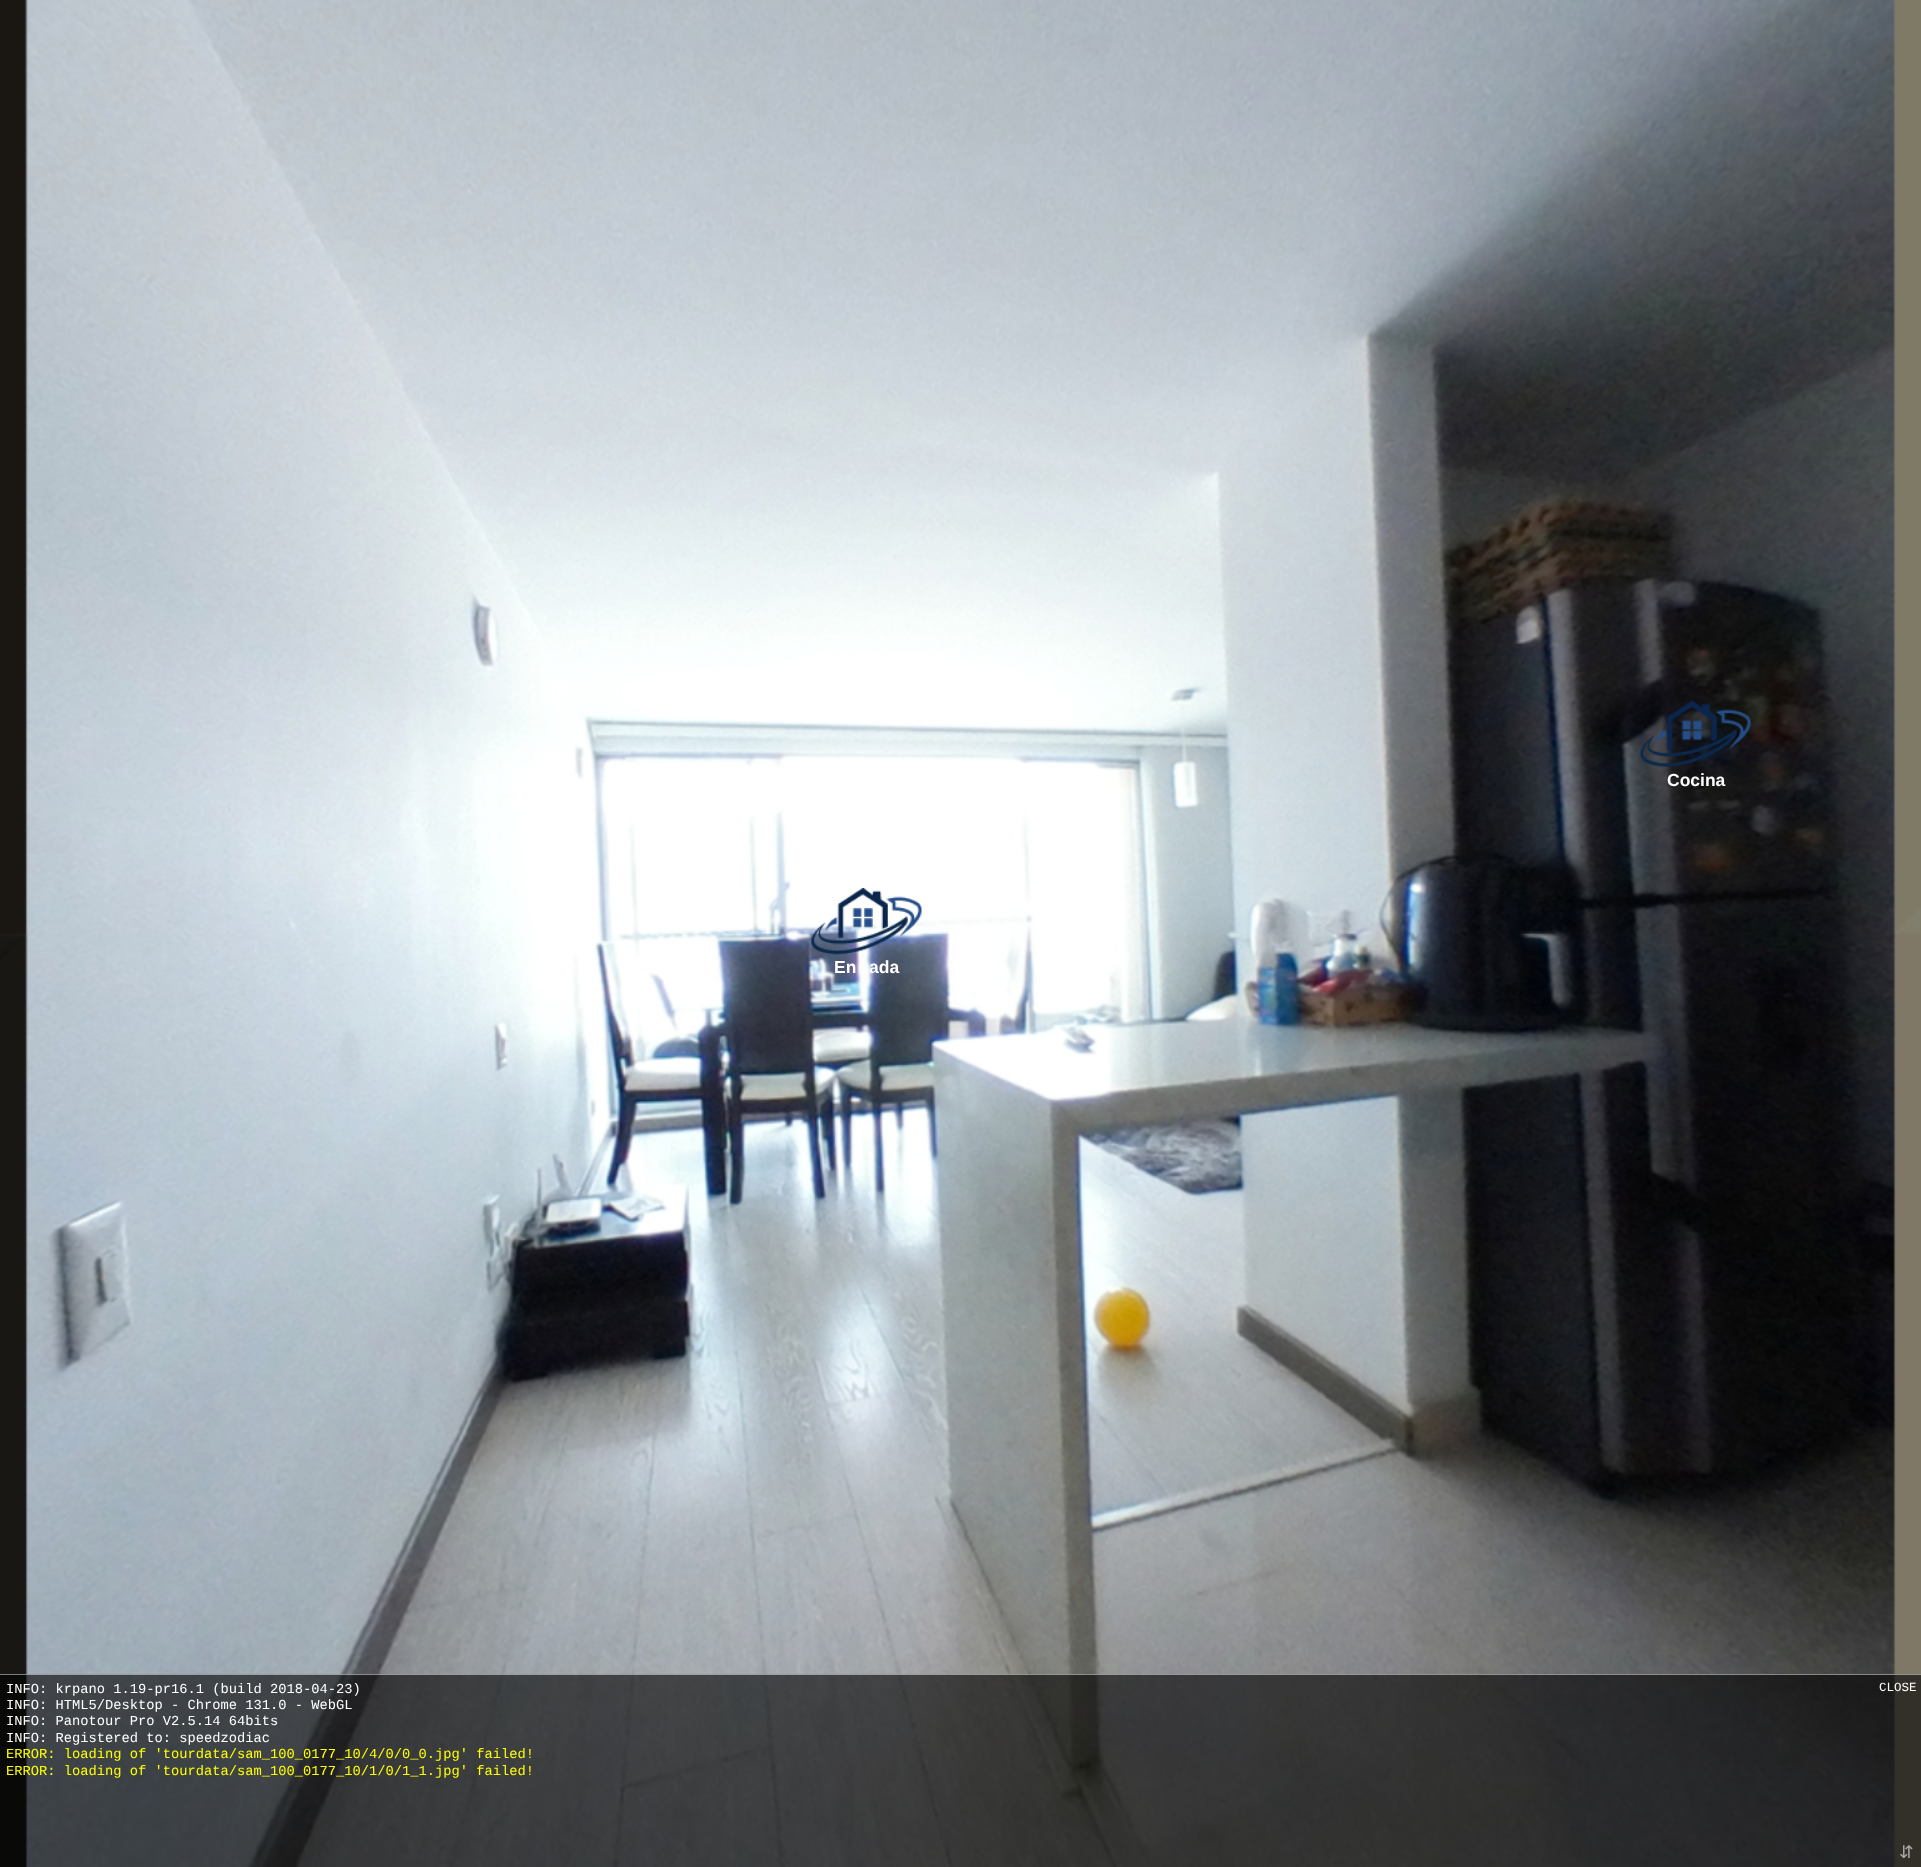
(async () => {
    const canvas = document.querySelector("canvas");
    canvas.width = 1921;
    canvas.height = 1867;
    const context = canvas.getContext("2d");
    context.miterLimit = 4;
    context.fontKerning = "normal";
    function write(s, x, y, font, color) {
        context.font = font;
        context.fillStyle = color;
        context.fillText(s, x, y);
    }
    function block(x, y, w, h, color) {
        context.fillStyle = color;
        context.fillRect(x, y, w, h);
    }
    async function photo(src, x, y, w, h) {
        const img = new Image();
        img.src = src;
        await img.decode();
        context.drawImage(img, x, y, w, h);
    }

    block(0, 0, 1921, 1867, "rgb(255, 255, 255)");
    await photo("media/1.png", 0, 0, 1921, 1867);
    await photo("media/2.png", 1640, 700, 111, 67);
    write("Cocina", 1667, 786, "bold 17.5px Liberation Sans", "rgb(255, 255, 255)");
    await photo("media/3.png", 811, 888, 111, 67);
    write("En", 834, 973, "bold 17.5px Liberation Sans", "rgb(255, 255, 255)");
    write("ada", 869, 973, "bold 17.5px Liberation Sans", "rgb(255, 255, 255)");
    block(0, 1674, 1921, 193, "rgba(0, 0, 0, 0.6)");
    block(0, 1674, 1921, 1, "rgba(255, 255, 255, 0.48)");
    write("INFO: krpano 1.19-pr16.1 (build 2018-04-23)", 6, 1693, "13.75px Liberation Mono", "rgb(255, 255, 255)");
    write("INFO: HTML5/Desktop - Chrome 131.0 - WebGL", 6, 1709, "13.75px Liberation Mono", "rgb(255, 255, 255)");
    write("INFO: Panotour Pro V2.5.14 64bits", 6, 1725, "13.75px Liberation Mono", "rgb(255, 255, 255)");
    write("INFO: Registered to: speedzodiac", 6, 1742, "13.75px Liberation Mono", "rgb(255, 255, 255)");
    write("ERROR: loading of 'tourdata/sam_100_0177_10/4/0/0_0.jpg' failed!", 6, 1758, "13.75px Liberation Mono", "rgb(255, 255, 0)");
    write("ERROR: loading of 'tourdata/sam_100_0177_10/1/0/1_1.jpg' failed!", 6, 1775, "13.75px Liberation Mono", "rgb(255, 255, 0)");
    write("CLOSE", 1879, 1691, "12.5px Liberation Mono", "rgb(255, 255, 255)");
    write("⇵", 1899, 1858, "17.5px DejaVu Sans", "rgb(170, 170, 170)");
})();
